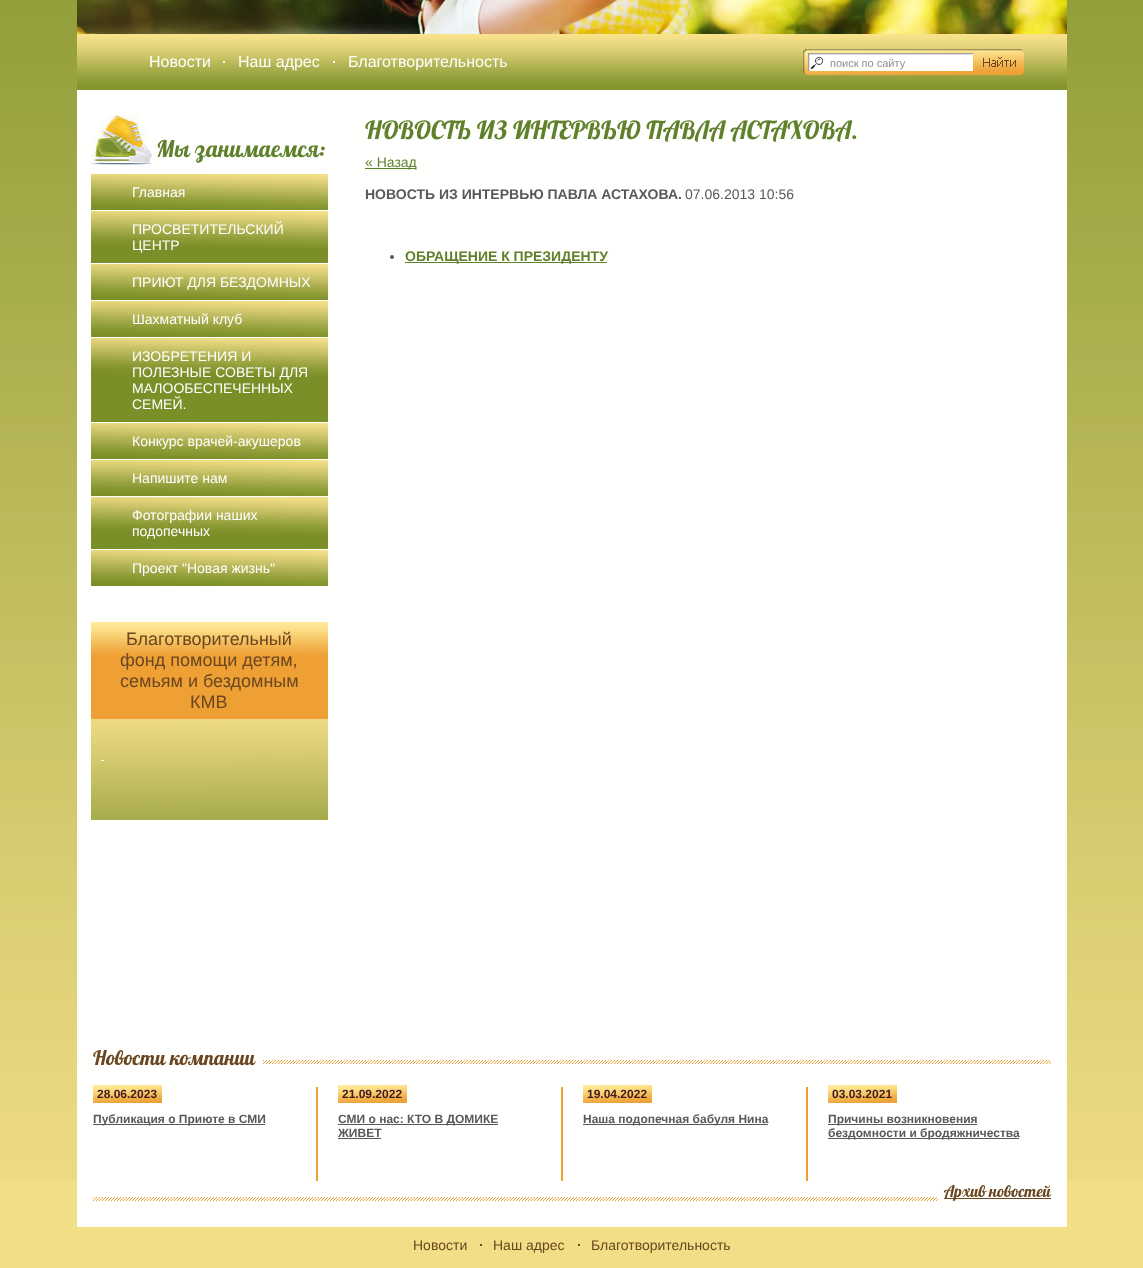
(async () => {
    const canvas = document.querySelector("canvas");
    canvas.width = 1143;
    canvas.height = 1268;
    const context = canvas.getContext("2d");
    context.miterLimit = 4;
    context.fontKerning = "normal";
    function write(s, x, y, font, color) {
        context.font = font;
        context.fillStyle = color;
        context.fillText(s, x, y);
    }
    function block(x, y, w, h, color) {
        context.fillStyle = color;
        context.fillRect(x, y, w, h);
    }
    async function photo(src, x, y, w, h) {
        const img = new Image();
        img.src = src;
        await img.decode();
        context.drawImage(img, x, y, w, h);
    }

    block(0, 0, 1143, 1268, "rgb(242, 222, 134)");
    await photo("media/1.png", 0, 0, 1143, 1180);
    block(77, 90, 990, 1137, "rgb(255, 255, 253)");
    await photo("media/2.png", 77, 34, 990, 56);
    write("Новости", 149, 67, "16px Liberation Sans", "rgb(255, 255, 255)");
    block(223, 61, 2, 2, "rgb(255, 255, 255)");
    write("Наш адрес", 238, 67, "16px Liberation Sans", "rgb(255, 255, 255)");
    block(333, 61, 2, 2, "rgb(255, 255, 255)");
    write("Благотворительность", 348, 67, "16px Liberation Sans", "rgb(255, 255, 255)");
    await photo("media/3.png", 77, 0, 990, 34);
    await photo("media/4.png", 803, 49, 221, 26);
    write("поиск по сайту", 830, 67, "11px Liberation Sans", "rgb(142, 140, 140)");
    await photo("media/5.png", 91, 115, 61, 50);
    write("Мы занимаемся:", 156, 157, "23px 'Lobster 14'", "rgb(95, 129, 43)");
    await photo("media/6.png", 91, 174, 237, 36);
    write("Главная", 132, 197, "14px Liberation Sans", "rgb(255, 255, 255)");
    block(91, 248, 237, 15, "rgb(123, 143, 40)");
    await photo("media/7.png", 91, 211, 237, 37);
    write("ПРОСВЕТИТЕЛЬСКИЙ", 132, 234, "14px Liberation Sans", "rgb(255, 255, 255)");
    write("ЦЕНТР", 132, 250, "14px Liberation Sans", "rgb(255, 255, 255)");
    await photo("media/6.png", 91, 264, 237, 36);
    write("ПРИЮТ ДЛЯ БЕЗДОМНЫХ", 132, 287, "14px Liberation Sans", "rgb(255, 255, 255)");
    await photo("media/6.png", 91, 301, 237, 36);
    write("Шахматный клуб", 132, 324, "14px Liberation Sans", "rgb(255, 255, 255)");
    block(91, 375, 237, 47, "rgb(123, 143, 40)");
    await photo("media/7.png", 91, 338, 237, 37);
    write("ИЗОБРЕТЕНИЯ И", 132, 361, "14px Liberation Sans", "rgb(255, 255, 255)");
    write("ПОЛЕЗНЫЕ СОВЕТЫ ДЛЯ", 132, 377, "14px Liberation Sans", "rgb(255, 255, 255)");
    write("МАЛООБЕСПЕЧЕННЫХ", 132, 393, "14px Liberation Sans", "rgb(255, 255, 255)");
    write("СЕМЕЙ.", 132, 409, "14px Liberation Sans", "rgb(255, 255, 255)");
    await photo("media/6.png", 91, 423, 237, 36);
    write("Конкурс врачей-акушеров", 132, 446, "14px Liberation Sans", "rgb(255, 255, 255)");
    await photo("media/6.png", 91, 460, 237, 36);
    write("Напишите нам", 132, 483, "14px Liberation Sans", "rgb(255, 255, 255)");
    block(91, 534, 237, 15, "rgb(123, 143, 40)");
    await photo("media/7.png", 91, 497, 237, 37);
    write("Фотографии наших", 132, 520, "14px Liberation Sans", "rgb(255, 255, 255)");
    write("подопечных", 132, 536, "14px Liberation Sans", "rgb(255, 255, 255)");
    await photo("media/6.png", 91, 550, 237, 36);
    write("Проект \"Новая жизнь\"", 132, 573, "14px Liberation Sans", "rgb(255, 255, 255)");
    block(91, 655, 237, 64, "rgb(238, 160, 53)");
    await photo("media/8.png", 91, 622, 237, 33);
    write("Благотворительный", 126, 645, "18px Liberation Sans", "rgb(106, 71, 33)");
    write("фонд помощи детям,", 120, 666, "18px Liberation Sans", "rgb(106, 71, 33)");
    write("семьям и бездомным", 120, 687, "18px Liberation Sans", "rgb(106, 71, 33)");
    write("КМВ", 190, 708, "18px Liberation Sans", "rgb(106, 71, 33)");
    await photo("media/9.png", 91, 719, 237, 101);
    block(101, 760, 3, 1, "rgb(255, 255, 255)");
    write("НОВОСТЬ ИЗ ИНТЕРВЬЮ ПАВЛА АСТАХОВА.", 365, 139, "25px 'Lobster 14'", "rgb(95, 129, 43)");
    block(365, 168, 51, 1, "rgb(95, 129, 43)");
    write("« Назад", 365, 167, "14px Liberation Sans", "rgb(95, 129, 43)");
    write("НОВОСТЬ ИЗ ИНТЕРВЬЮ ПАВЛА АСТАХОВА.", 365, 199, "bold 14px Liberation Sans", "rgb(88, 88, 88)");
    write("07.06.2013 10:56", 685, 199, "14px Liberation Sans", "rgb(88, 88, 88)");
    context.beginPath();
    context.arc(392, 257, 2, 0, Math.PI * 2);
    context.fill();
    block(405, 262, 202, 1, "rgb(95, 129, 43)");
    write("ОБРАЩЕНИЕ К ПРЕЗИДЕНТУ", 405, 261, "bold 14px Liberation Sans", "rgb(95, 129, 43)");
    await photo("media/10.png", 93, 1060, 958, 141);
    write("Новости компании", 93, 1065, "20px 'Lobster 14'", "rgb(106, 71, 33)");
    await photo("media/11.png", 93, 1085, 69, 18);
    write("28.06.2023", 97, 1098, "bold 12px Liberation Sans", "rgb(69, 26, 30)");
    block(93, 1124, 172, 1, "rgb(88, 88, 88)");
    write("Публикация о Приюте в СМИ", 93, 1123, "bold 12px Liberation Sans", "rgb(88, 88, 88)");
    block(316, 1087, 2, 94, "rgb(238, 160, 53)");
    await photo("media/11.png", 338, 1085, 69, 18);
    write("21.09.2022", 342, 1098, "bold 12px Liberation Sans", "rgb(69, 26, 30)");
    block(338, 1124, 160, 1, "rgb(88, 88, 88)");
    write("СМИ о нас: КТО В ДОМИКЕ", 338, 1123, "bold 12px Liberation Sans", "rgb(88, 88, 88)");
    write("ЖИВЕТ", 338, 1137, "bold 12px Liberation Sans", "rgb(88, 88, 88)");
    block(338, 1138, 43, 1, "rgb(88, 88, 88)");
    block(561, 1087, 2, 94, "rgb(238, 160, 53)");
    await photo("media/11.png", 583, 1085, 69, 18);
    write("19.04.2022", 587, 1098, "bold 12px Liberation Sans", "rgb(69, 26, 30)");
    block(583, 1124, 185, 1, "rgb(88, 88, 88)");
    write("Наша подопечная бабуля Нина", 583, 1123, "bold 12px Liberation Sans", "rgb(88, 88, 88)");
    block(806, 1087, 2, 94, "rgb(238, 160, 53)");
    await photo("media/11.png", 828, 1085, 69, 18);
    write("03.03.2021", 832, 1098, "bold 12px Liberation Sans", "rgb(69, 26, 30)");
    block(828, 1124, 149, 1, "rgb(88, 88, 88)");
    write("Причины возникновения", 828, 1123, "bold 12px Liberation Sans", "rgb(88, 88, 88)");
    block(828, 1138, 191, 1, "rgb(88, 88, 88)");
    write("бездомности и бродяжничества", 828, 1137, "bold 12px Liberation Sans", "rgb(88, 88, 88)");
    block(944, 1198, 107, 1, "rgb(106, 71, 33)");
    write("Архив новостей", 944, 1197, "16px 'Lobster 14'", "rgb(106, 71, 33)");
    write("Новости", 413, 1250, "14px Liberation Sans", "rgb(106, 71, 33)");
    block(480, 1244, 2, 2, "rgb(109, 75, 37)");
    write("Наш адрес", 493, 1250, "14px Liberation Sans", "rgb(106, 71, 33)");
    block(578, 1244, 2, 2, "rgb(109, 75, 37)");
    write("Благотворительность", 591, 1250, "14px Liberation Sans", "rgb(106, 71, 33)");
})();
